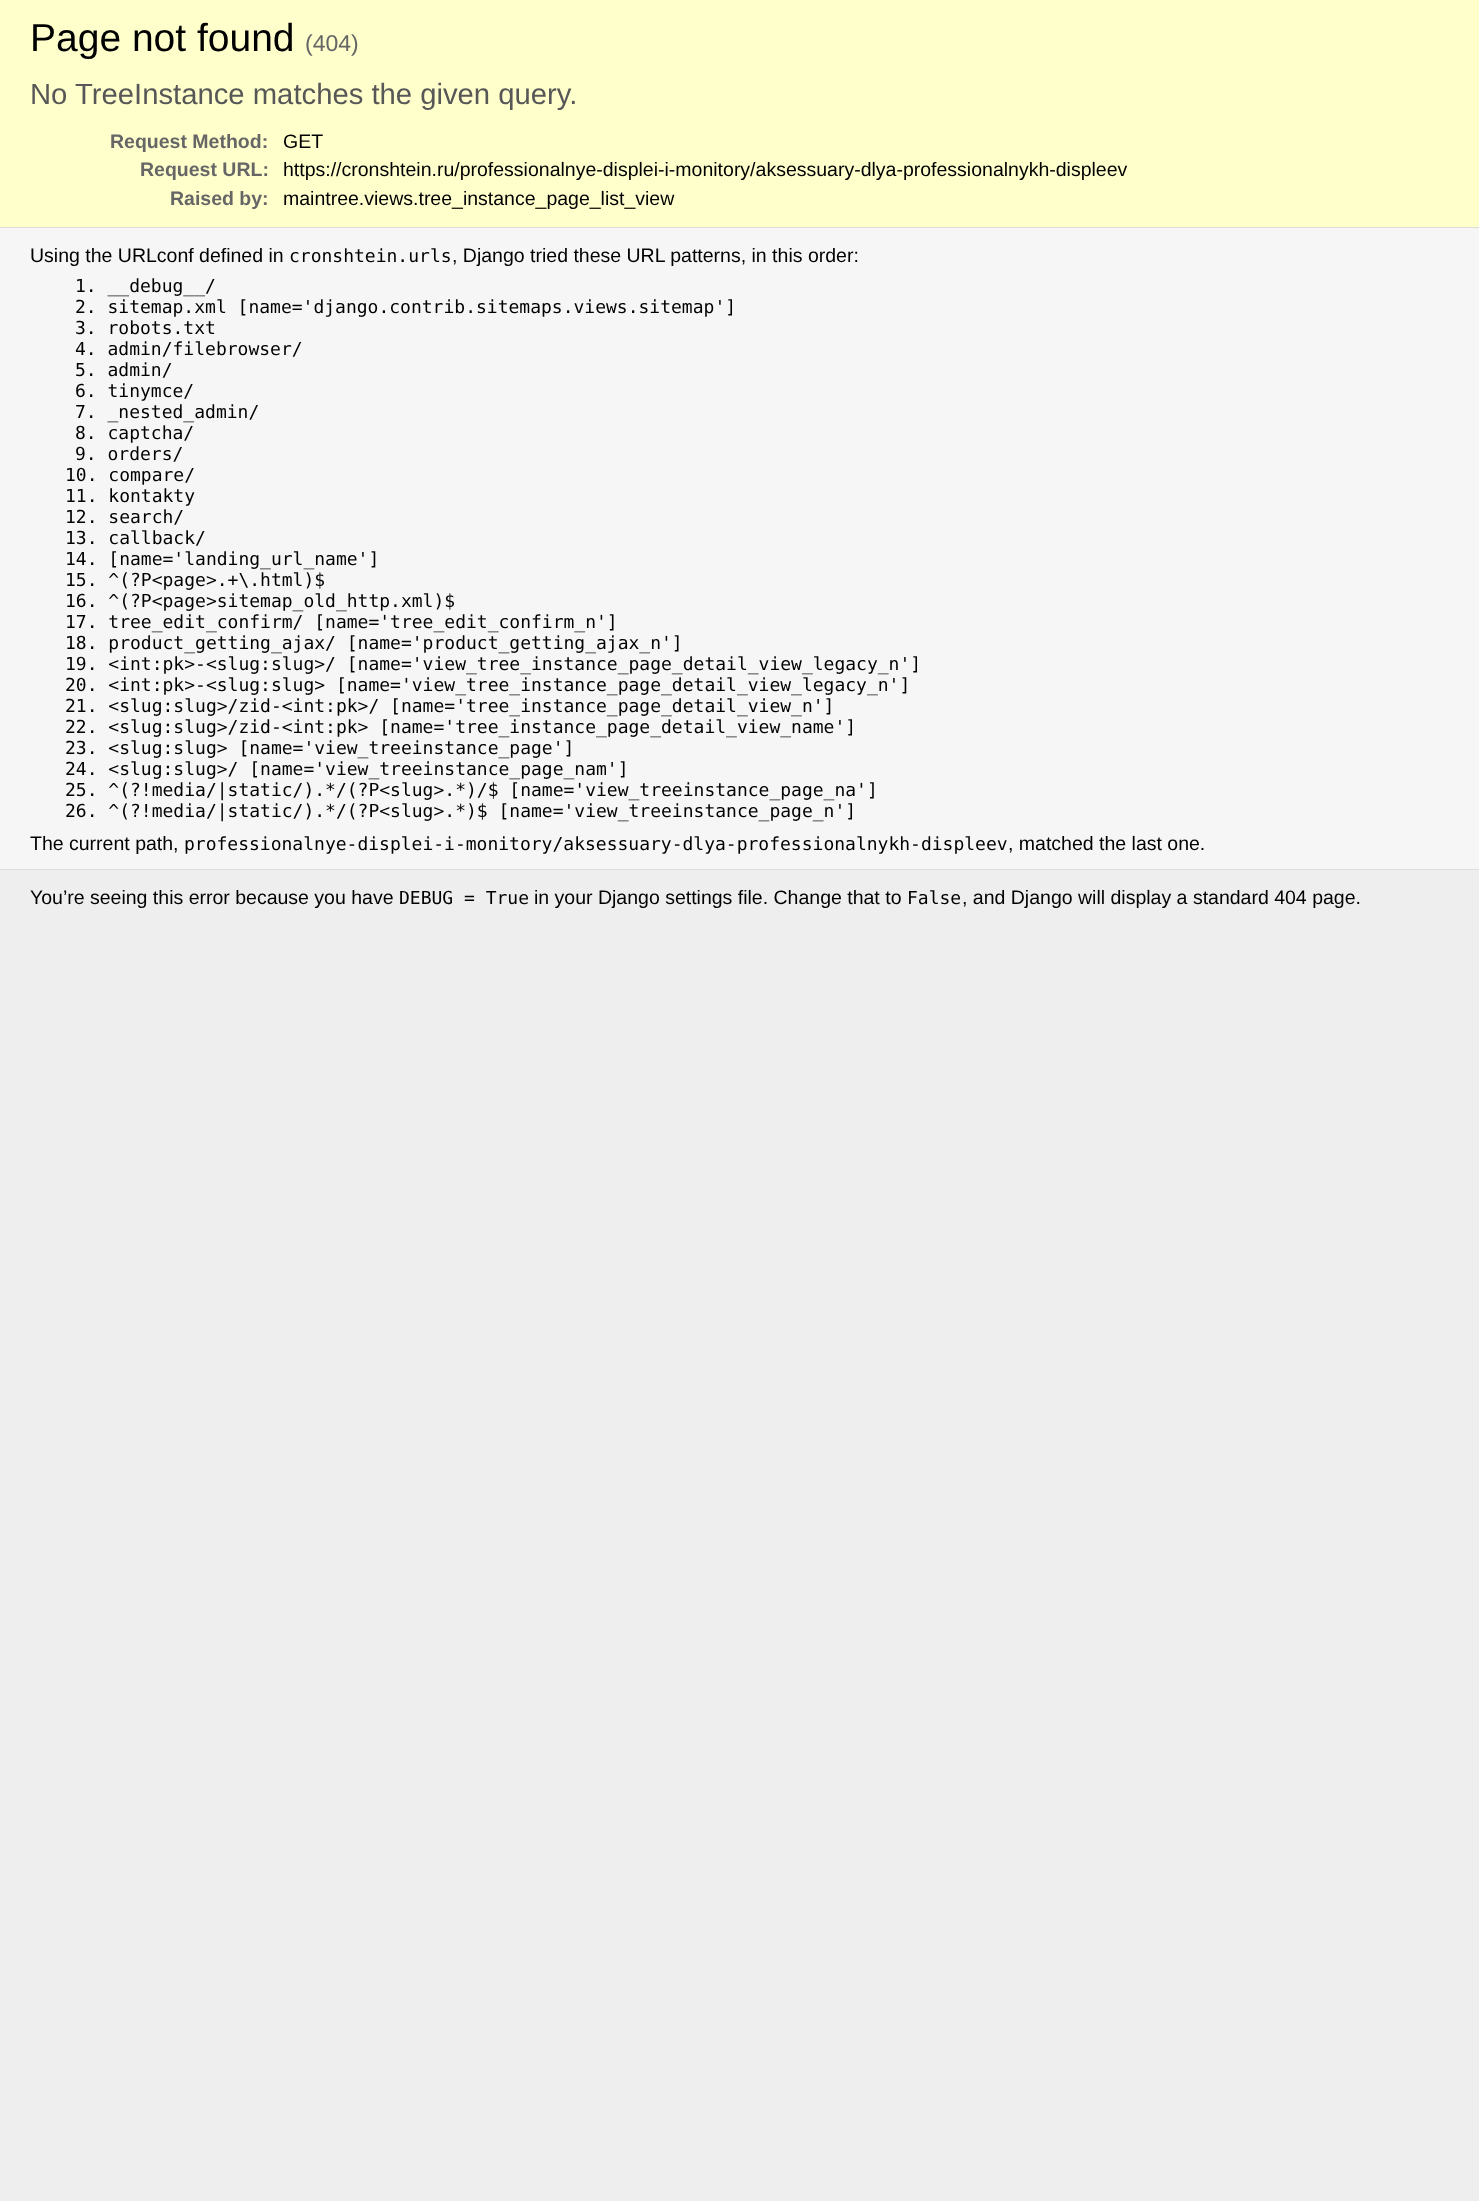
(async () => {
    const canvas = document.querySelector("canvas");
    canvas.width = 1479;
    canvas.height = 2201;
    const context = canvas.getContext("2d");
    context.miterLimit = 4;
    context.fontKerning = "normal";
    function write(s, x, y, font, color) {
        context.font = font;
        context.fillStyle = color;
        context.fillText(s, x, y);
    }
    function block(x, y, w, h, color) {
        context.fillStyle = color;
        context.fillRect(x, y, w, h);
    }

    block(0, 0, 1479, 2201, "rgb(238, 238, 238)");
    block(0, 0, 1479, 227, "rgb(255, 255, 204)");
    block(0, 227, 1479, 1, "rgb(221, 221, 221)");
    write("Page not found", 30, 51, "39px Liberation Sans", "rgb(0, 0, 0)");
    write("(404)", 305, 51, "23px Liberation Sans", "rgb(102, 102, 102)");
    write("No TreeInstance matches the given query.", 30, 104, "29.25px Liberation Sans", "rgb(87, 87, 87)");
    write("Request Method:", 110, 148, "bold 19.5px Liberation Sans", "rgb(102, 102, 102)");
    write("GET", 283, 148, "19.5px Liberation Sans", "rgb(0, 0, 0)");
    write("Request URL:", 140, 176, "bold 19.5px Liberation Sans", "rgb(102, 102, 102)");
    write("https://cronshtein.ru/professionalnye-displei-i-monitory/aksessuary-dlya-professionalnykh-displeev", 283, 176, "19.5px Liberation Sans", "rgb(0, 0, 0)");
    write("Raised by:", 170, 205, "bold 19.5px Liberation Sans", "rgb(102, 102, 102)");
    write("maintree.views.tree_instance_page_list_view", 283, 205, "19.5px Liberation Sans", "rgb(0, 0, 0)");
    block(0, 228, 1479, 641, "rgb(246, 246, 246)");
    block(0, 869, 1479, 1, "rgb(221, 221, 221)");
    write("Using the URLconf defined in", 30, 262, "19.5px Liberation Sans", "rgb(0, 0, 0)");
    write("cronshtein.urls", 289, 262, "18px DejaVu Sans Mono", "rgb(0, 0, 0)");
    write(", Django tried these URL patterns, in this order:", 452, 262, "19.5px Liberation Sans", "rgb(0, 0, 0)");
    write("1. __debug__/", 75, 292, "18px DejaVu Sans Mono", "rgb(0, 0, 0)");
    write("2. sitemap.xml [name='django.contrib.sitemaps.views.sitemap']", 75, 313, "18px DejaVu Sans Mono", "rgb(0, 0, 0)");
    write("3. robots.txt", 75, 334, "18px DejaVu Sans Mono", "rgb(0, 0, 0)");
    write("4. admin/filebrowser/", 75, 355, "18px DejaVu Sans Mono", "rgb(0, 0, 0)");
    write("5. admin/", 75, 376, "18px DejaVu Sans Mono", "rgb(0, 0, 0)");
    write("6. tinymce/", 75, 397, "18px DejaVu Sans Mono", "rgb(0, 0, 0)");
    write("7. _nested_admin/", 75, 418, "18px DejaVu Sans Mono", "rgb(0, 0, 0)");
    write("8. captcha/", 75, 439, "18px DejaVu Sans Mono", "rgb(0, 0, 0)");
    write("9. orders/", 75, 460, "18px DejaVu Sans Mono", "rgb(0, 0, 0)");
    write("10. compare/", 65, 481, "18px DejaVu Sans Mono", "rgb(0, 0, 0)");
    write("11. kontakty", 65, 502, "18px DejaVu Sans Mono", "rgb(0, 0, 0)");
    write("12. search/", 65, 523, "18px DejaVu Sans Mono", "rgb(0, 0, 0)");
    write("13. callback/", 65, 544, "18px DejaVu Sans Mono", "rgb(0, 0, 0)");
    write("14. [name='landing_url_name']", 65, 565, "18px DejaVu Sans Mono", "rgb(0, 0, 0)");
    write("15. ^(?P<page>.+\\.html)$", 65, 586, "18px DejaVu Sans Mono", "rgb(0, 0, 0)");
    write("16. ^(?P<page>sitemap_old_http.xml)$", 65, 607, "18px DejaVu Sans Mono", "rgb(0, 0, 0)");
    write("17. tree_edit_confirm/ [name='tree_edit_confirm_n']", 65, 628, "18px DejaVu Sans Mono", "rgb(0, 0, 0)");
    write("18. product_getting_ajax/ [name='product_getting_ajax_n']", 65, 649, "18px DejaVu Sans Mono", "rgb(0, 0, 0)");
    write("19. <int:pk>-<slug:slug>/ [name='view_tree_instance_page_detail_view_legacy_n']", 65, 670, "18px DejaVu Sans Mono", "rgb(0, 0, 0)");
    write("20. <int:pk>-<slug:slug> [name='view_tree_instance_page_detail_view_legacy_n']", 65, 691, "18px DejaVu Sans Mono", "rgb(0, 0, 0)");
    write("21. <slug:slug>/zid-<int:pk>/ [name='tree_instance_page_detail_view_n']", 65, 712, "18px DejaVu Sans Mono", "rgb(0, 0, 0)");
    write("22. <slug:slug>/zid-<int:pk> [name='tree_instance_page_detail_view_name']", 65, 733, "18px DejaVu Sans Mono", "rgb(0, 0, 0)");
    write("23. <slug:slug> [name='view_treeinstance_page']", 65, 754, "18px DejaVu Sans Mono", "rgb(0, 0, 0)");
    write("24. <slug:slug>/ [name='view_treeinstance_page_nam']", 65, 775, "18px DejaVu Sans Mono", "rgb(0, 0, 0)");
    write("25. ^(?!media/|static/).*/(?P<slug>.*)/$ [name='view_treeinstance_page_na']", 65, 796, "18px DejaVu Sans Mono", "rgb(0, 0, 0)");
    write("26. ^(?!media/|static/).*/(?P<slug>.*)$ [name='view_treeinstance_page_n']", 65, 817, "18px DejaVu Sans Mono", "rgb(0, 0, 0)");
    write("The current path,", 30, 850, "19.5px Liberation Sans", "rgb(0, 0, 0)");
    write("professionalnye-displei-i-monitory/aksessuary-dlya-professionalnykh-displeev", 184, 850, "18px DejaVu Sans Mono", "rgb(0, 0, 0)");
    write(", matched the last one.", 1008, 850, "19.5px Liberation Sans", "rgb(0, 0, 0)");
    write("You’re seeing this error because you have", 30, 904, "19.5px Liberation Sans", "rgb(0, 0, 0)");
    write("DEBUG = True", 399, 904, "18px DejaVu Sans Mono", "rgb(0, 0, 0)");
    write("in your Django settings file. Change that to", 534, 904, "19.5px Liberation Sans", "rgb(0, 0, 0)");
    write("False", 907, 904, "18px DejaVu Sans Mono", "rgb(0, 0, 0)");
    write(", and Django will display a standard 404 page.", 962, 904, "19.5px Liberation Sans", "rgb(0, 0, 0)");
})();
